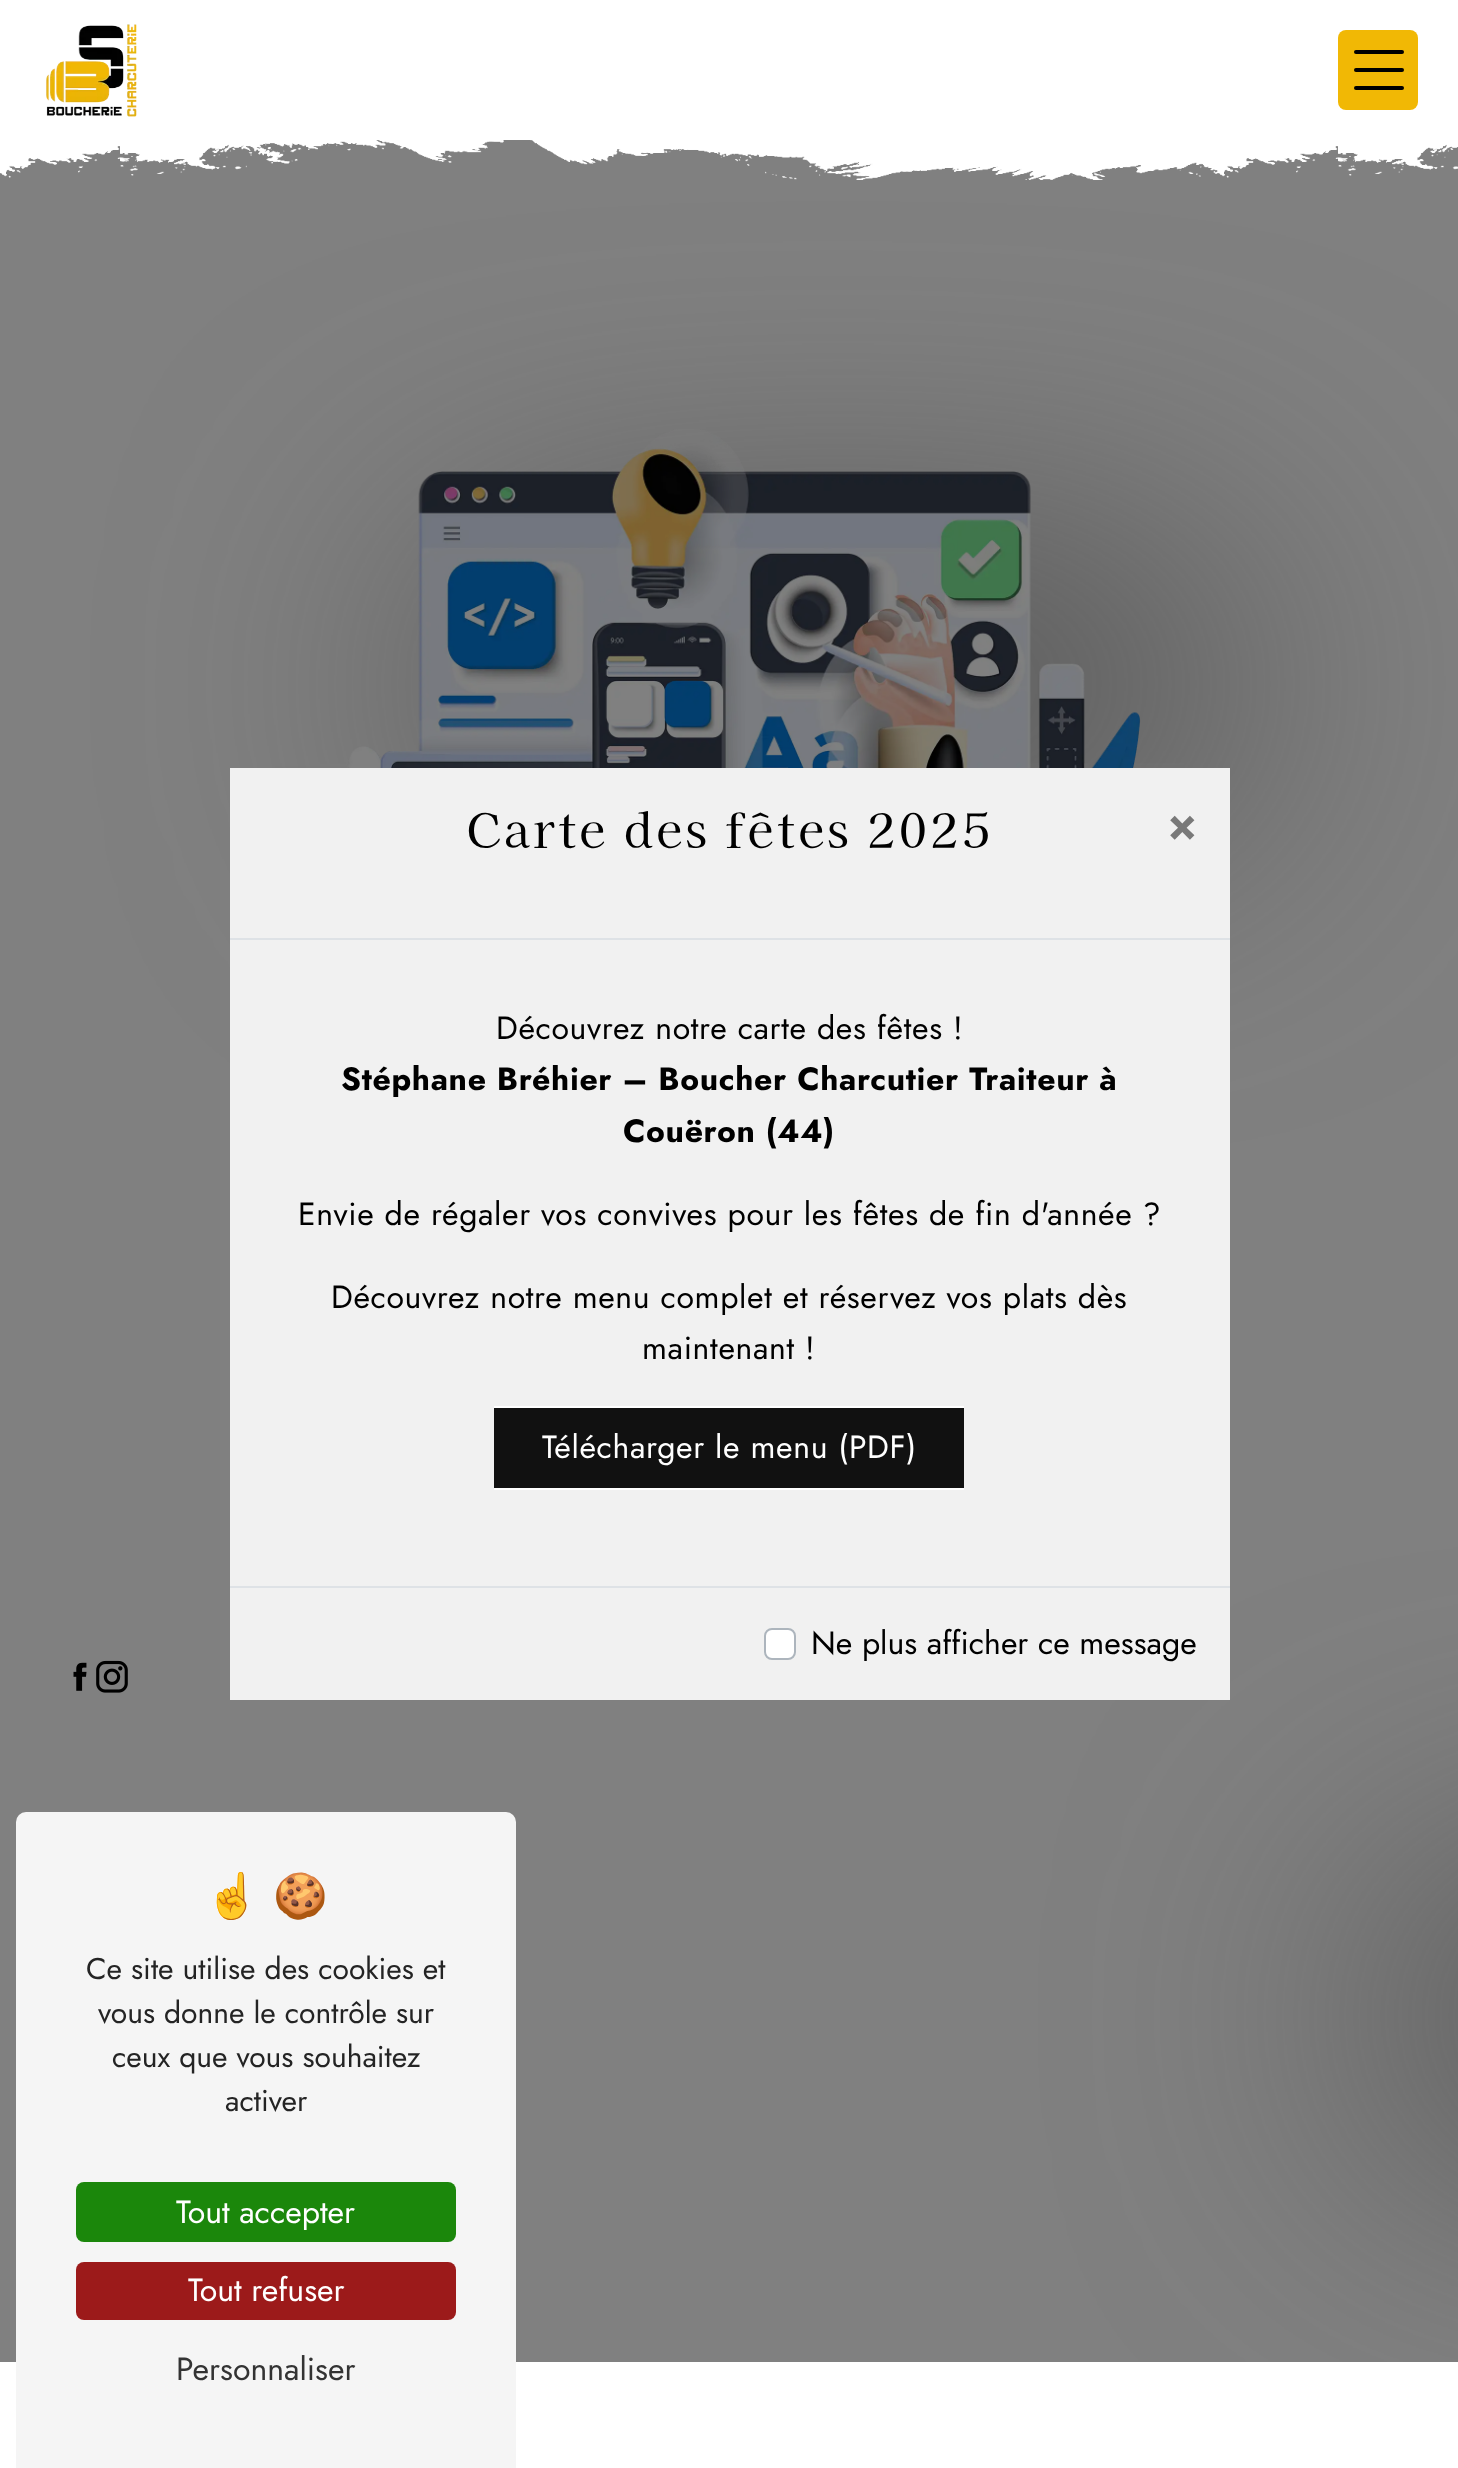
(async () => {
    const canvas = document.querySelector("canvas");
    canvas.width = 1458;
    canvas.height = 2468;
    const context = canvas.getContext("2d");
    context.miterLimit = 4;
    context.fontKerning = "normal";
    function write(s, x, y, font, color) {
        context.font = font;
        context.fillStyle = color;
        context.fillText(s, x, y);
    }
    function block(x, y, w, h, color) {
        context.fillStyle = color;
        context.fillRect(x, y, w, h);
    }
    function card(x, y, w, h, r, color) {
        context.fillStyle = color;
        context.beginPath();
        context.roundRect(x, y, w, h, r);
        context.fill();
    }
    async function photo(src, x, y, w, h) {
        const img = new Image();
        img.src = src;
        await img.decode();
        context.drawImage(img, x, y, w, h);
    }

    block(0, 0, 1458, 2468, "rgb(128, 128, 128)");
    context.fillStyle = "rgb(64, 64, 64)";
    context.filter = "blur(160px)";
    context.beginPath();
    context.roundRect(438, 584, 800, 200, 100);
    context.fill();
    context.filter = "none";
    block(0, 0, 1458, 140, "rgb(255, 255, 255)");
    await photo("media/1.png", 46, 24, 91, 93);
    card(1338, 30, 80, 80, 8, "rgb(241, 184, 5)");
    card(1354, 68, 50, 4, 2, "rgb(0, 0, 0)");
    card(1354, 50, 50, 4, 2, "rgb(0, 0, 0)");
    card(1354, 86, 50, 4, 2, "rgb(0, 0, 0)");
    await photo("media/2.png", 0, 140, 1458, 40);
    context.fillStyle = "rgb(64, 64, 64)";
    context.filter = "blur(160px)";
    context.beginPath();
    context.roundRect(1386, 1916, 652, 200, 100);
    context.fill();
    context.filter = "none";
    await photo("media/3.png", 275, 429, 909, 339);
    await photo("media/4.png", 73, 1662, 14, 29);
    await photo("media/5.png", 96, 1660, 32, 33);
    block(230, 768, 1000, 932, "rgb(241, 241, 241)");
    block(230, 938, 1000, 2, "rgb(222, 226, 230)");
    context.letterSpacing = "3.25px";
    write("Carte des fêtes 2025", 466, 848, "48px Kaisei Decol", "rgb(0, 0, 0)");
    context.letterSpacing = "0px";
    write("×", 1168, 840, "bold 48px Jost", "rgb(121, 121, 121)");
    context.letterSpacing = "0.65px";
    write("Découvrez notre carte des fêtes !", 496, 1039, "32px Jost", "rgb(0, 0, 0)");
    write("Stéphane Bréhier – Boucher Charcutier Traiteur à", 341, 1090, "bold 32px Jost", "rgb(0, 0, 0)");
    write("Couëron (44)", 623, 1142, "bold 32px Jost", "rgb(0, 0, 0)");
    write("Envie de régaler vos convives pour les fêtes de fin d'année ?", 298, 1225, "32px Jost", "rgb(0, 0, 0)");
    write("Découvrez notre menu complet et réservez vos plats dès", 331, 1308, "32px Jost", "rgb(0, 0, 0)");
    write("maintenant !", 642, 1359, "32px Jost", "rgb(0, 0, 0)");
    block(494, 1408, 470, 80, "rgb(17, 17, 17)");
    block(494, 1406, 470, 2, "rgb(255, 255, 255)");
    block(494, 1488, 470, 2, "rgb(255, 255, 255)");
    write("Télécharger le menu (PDF)", 542, 1458, "32px Jost", "rgb(255, 255, 255)");
    block(230, 1586, 1000, 2, "rgb(222, 226, 230)");
    context.fillStyle = "rgb(255, 255, 255)";
    context.beginPath();
    context.roundRect(765, 1629, 30, 30, 7);
    context.fill();
    context.strokeStyle = "rgb(173, 181, 189)";
    context.lineWidth = 2;
    context.stroke();
    context.letterSpacing = "0px";
    write("Ne plus afficher ce message", 811, 1654, "32px Jost", "rgb(0, 0, 0)");
    block(0, 2362, 1458, 106, "rgb(255, 255, 255)");
    context.fillStyle = "rgb(245, 245, 245)";
    context.beginPath();
    context.roundRect(16, 1812, 500, 656, [10, 10, 0, 0]);
    context.fill();
    write("☝", 205, 1911, "44px Noto Color Emoji", "rgb(36, 36, 36)");
    write("🍪", 273, 1911, "44px Noto Color Emoji", "rgb(36, 36, 36)");
    write("Ce site utilise des cookies et", 86, 1979, "30px Jost", "rgb(36, 36, 36)");
    write("vous donne le contrôle sur", 98, 2023, "30px Jost", "rgb(36, 36, 36)");
    write("ceux que vous souhaitez", 112, 2067, "30px Jost", "rgb(36, 36, 36)");
    write("activer", 225, 2111, "30px Jost", "rgb(36, 36, 36)");
    card(76, 2182, 380, 60, 8, "rgb(27, 135, 11)");
    write("Tout accepter", 176, 2223, "32px Jost", "rgb(255, 255, 255)");
    card(76, 2262, 380, 58, 8, "rgb(156, 26, 26)");
    write("Tout refuser", 188, 2301, "32px Jost", "rgb(255, 255, 255)");
    write("Personnaliser", 176, 2380, "32px Jost", "rgb(51, 51, 51)");
})();
